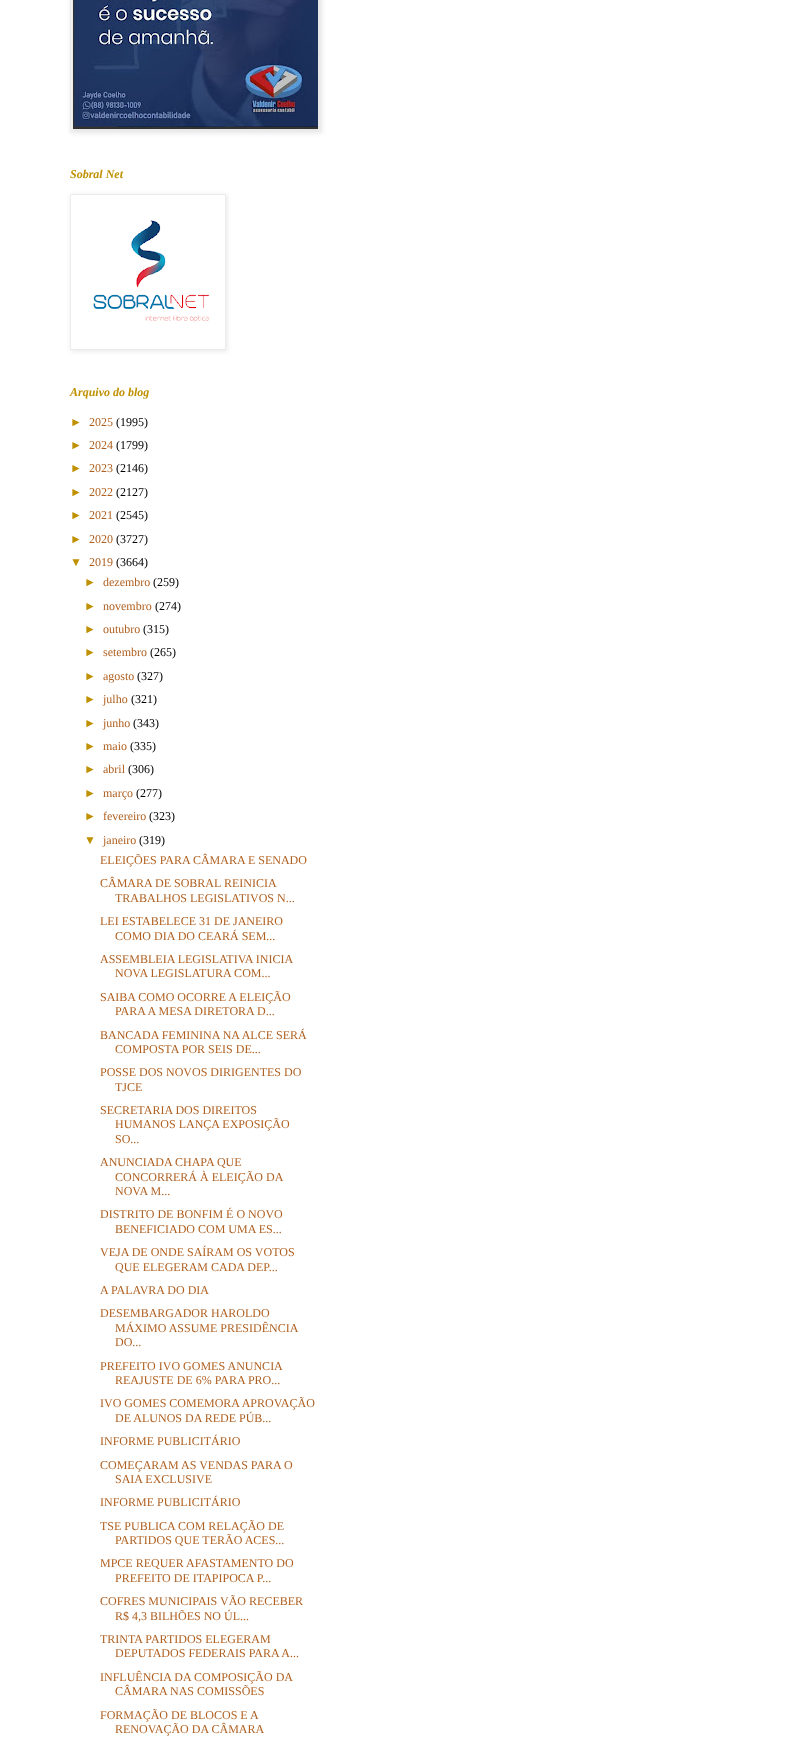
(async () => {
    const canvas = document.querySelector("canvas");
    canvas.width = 808;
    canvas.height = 1739;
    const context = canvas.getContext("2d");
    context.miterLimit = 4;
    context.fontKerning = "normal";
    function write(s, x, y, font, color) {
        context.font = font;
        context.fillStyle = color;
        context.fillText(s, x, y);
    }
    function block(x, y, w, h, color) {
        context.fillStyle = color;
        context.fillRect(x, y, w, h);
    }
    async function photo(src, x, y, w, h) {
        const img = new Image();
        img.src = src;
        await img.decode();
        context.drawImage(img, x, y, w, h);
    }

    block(0, 0, 808, 1739, "rgb(255, 255, 255)");
    context.fillStyle = "rgba(0, 0, 0, 0.1)";
    context.filter = "blur(2.5px)";
    context.beginPath();
    context.rect(71, -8, 251, 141);
    context.fill();
    context.filter = "none";
    context.strokeStyle = "rgb(236, 236, 236)";
    context.strokeRect(70.5, -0.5, 250, 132);
    await photo("media/1.png", 73, 0, 245, 129);
    write("Sobral Net", 70, 178, "italic bold 12px Liberation Serif", "rgb(191, 144, 0)");
    context.save();
    context.beginPath();
    context.moveTo(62, 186);
    context.lineTo(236, 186);
    context.lineTo(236, 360);
    context.lineTo(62, 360);
    context.closePath();
    context.moveTo(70, 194);
    context.lineTo(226, 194);
    context.lineTo(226, 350);
    context.lineTo(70, 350);
    context.closePath();
    context.clip("evenodd");
    context.fillStyle = "rgba(0, 0, 0, 0.1)";
    context.filter = "blur(2.5px)";
    context.beginPath();
    context.rect(71, 195, 156, 156);
    context.fill();
    context.filter = "none";
    context.restore();
    context.strokeRect(70.5, 194.5, 155, 155);
    await photo("media/2.png", 93, 220, 117, 102);
    write("Arquivo do blog", 70, 396, "italic bold 12px Liberation Serif", "rgb(191, 144, 0)");
    write("►", 70, 426, "12px Liberation Sans", "rgb(191, 144, 0)");
    write("2025", 89, 426, "12px Liberation Serif", "rgb(175, 95, 31)");
    write("(1995)", 116, 426, "12px Liberation Serif", "rgb(0, 0, 0)");
    write("►", 70, 449, "12px Liberation Sans", "rgb(191, 144, 0)");
    write("2024", 89, 449, "12px Liberation Serif", "rgb(175, 95, 31)");
    write("(1799)", 116, 449, "12px Liberation Serif", "rgb(0, 0, 0)");
    write("►", 70, 472, "12px Liberation Sans", "rgb(191, 144, 0)");
    write("2023", 89, 472, "12px Liberation Serif", "rgb(175, 95, 31)");
    write("(2146)", 116, 472, "12px Liberation Serif", "rgb(0, 0, 0)");
    write("►", 70, 496, "12px Liberation Sans", "rgb(191, 144, 0)");
    write("2022", 89, 496, "12px Liberation Serif", "rgb(175, 95, 31)");
    write("(2127)", 116, 496, "12px Liberation Serif", "rgb(0, 0, 0)");
    write("►", 70, 519, "12px Liberation Sans", "rgb(191, 144, 0)");
    write("2021", 89, 519, "12px Liberation Serif", "rgb(175, 95, 31)");
    write("(2545)", 116, 519, "12px Liberation Serif", "rgb(0, 0, 0)");
    write("►", 70, 543, "12px Liberation Sans", "rgb(191, 144, 0)");
    write("2020", 89, 543, "12px Liberation Serif", "rgb(175, 95, 31)");
    write("(3727)", 116, 543, "12px Liberation Serif", "rgb(0, 0, 0)");
    write("▼", 70, 566, "12px Liberation Sans", "rgb(191, 144, 0)");
    write("2019", 89, 566, "12px Liberation Serif", "rgb(175, 95, 31)");
    write("(3664)", 116, 566, "12px Liberation Serif", "rgb(0, 0, 0)");
    write("►", 84, 586, "12px Liberation Sans", "rgb(191, 144, 0)");
    write("dezembro", 103, 586, "12px Liberation Serif", "rgb(175, 95, 31)");
    write("(259)", 153, 586, "12px Liberation Serif", "rgb(0, 0, 0)");
    write("►", 84, 610, "12px Liberation Sans", "rgb(191, 144, 0)");
    write("novembro", 103, 610, "12px Liberation Serif", "rgb(175, 95, 31)");
    write("(274)", 155, 610, "12px Liberation Serif", "rgb(0, 0, 0)");
    write("►", 84, 633, "12px Liberation Sans", "rgb(191, 144, 0)");
    write("outubro", 103, 633, "12px Liberation Serif", "rgb(175, 95, 31)");
    write("(315)", 143, 633, "12px Liberation Serif", "rgb(0, 0, 0)");
    write("►", 84, 656, "12px Liberation Sans", "rgb(191, 144, 0)");
    write("setembro", 103, 656, "12px Liberation Serif", "rgb(175, 95, 31)");
    write("(265)", 150, 656, "12px Liberation Serif", "rgb(0, 0, 0)");
    write("►", 84, 680, "12px Liberation Sans", "rgb(191, 144, 0)");
    write("agosto", 103, 680, "12px Liberation Serif", "rgb(175, 95, 31)");
    write("(327)", 137, 680, "12px Liberation Serif", "rgb(0, 0, 0)");
    write("►", 84, 703, "12px Liberation Sans", "rgb(191, 144, 0)");
    write("julho", 103, 703, "12px Liberation Serif", "rgb(175, 95, 31)");
    write("(321)", 131, 703, "12px Liberation Serif", "rgb(0, 0, 0)");
    write("►", 84, 727, "12px Liberation Sans", "rgb(191, 144, 0)");
    write("junho", 103, 727, "12px Liberation Serif", "rgb(175, 95, 31)");
    write("(343)", 133, 727, "12px Liberation Serif", "rgb(0, 0, 0)");
    write("►", 84, 750, "12px Liberation Sans", "rgb(191, 144, 0)");
    write("maio", 103, 750, "12px Liberation Serif", "rgb(175, 95, 31)");
    write("(335)", 130, 750, "12px Liberation Serif", "rgb(0, 0, 0)");
    write("►", 84, 773, "12px Liberation Sans", "rgb(191, 144, 0)");
    write("abril", 103, 773, "12px Liberation Serif", "rgb(175, 95, 31)");
    write("(306)", 128, 773, "12px Liberation Serif", "rgb(0, 0, 0)");
    write("►", 84, 797, "12px Liberation Sans", "rgb(191, 144, 0)");
    write("março", 103, 797, "12px Liberation Serif", "rgb(175, 95, 31)");
    write("(277)", 136, 797, "12px Liberation Serif", "rgb(0, 0, 0)");
    write("►", 84, 820, "12px Liberation Sans", "rgb(191, 144, 0)");
    write("fevereiro", 103, 820, "12px Liberation Serif", "rgb(175, 95, 31)");
    write("(323)", 149, 820, "12px Liberation Serif", "rgb(0, 0, 0)");
    write("▼", 84, 844, "12px Liberation Sans", "rgb(191, 144, 0)");
    write("janeiro", 103, 844, "12px Liberation Serif", "rgb(175, 95, 31)");
    write("(319)", 139, 844, "12px Liberation Serif", "rgb(0, 0, 0)");
    write("ELEIÇÕES PARA CÂMARA E SENADO", 100, 864, "12px Liberation Serif", "rgb(175, 95, 31)");
    write("CÂMARA DE SOBRAL REINICIA", 100, 887, "12px Liberation Serif", "rgb(175, 95, 31)");
    write("TRABALHOS LEGISLATIVOS N...", 115, 902, "12px Liberation Serif", "rgb(175, 95, 31)");
    write("LEI ESTABELECE 31 DE JANEIRO", 100, 925, "12px Liberation Serif", "rgb(175, 95, 31)");
    write("COMO DIA DO CEARÁ SEM...", 115, 940, "12px Liberation Serif", "rgb(175, 95, 31)");
    write("ASSEMBLEIA LEGISLATIVA INICIA", 100, 963, "12px Liberation Serif", "rgb(175, 95, 31)");
    write("NOVA LEGISLATURA COM...", 115, 977, "12px Liberation Serif", "rgb(175, 95, 31)");
    write("SAIBA COMO OCORRE A ELEIÇÃO", 100, 1001, "12px Liberation Serif", "rgb(175, 95, 31)");
    write("PARA A MESA DIRETORA D...", 115, 1015, "12px Liberation Serif", "rgb(175, 95, 31)");
    write("BANCADA FEMININA NA ALCE SERÁ", 100, 1039, "12px Liberation Serif", "rgb(175, 95, 31)");
    write("COMPOSTA POR SEIS DE...", 115, 1053, "12px Liberation Serif", "rgb(175, 95, 31)");
    write("POSSE DOS NOVOS DIRIGENTES DO", 100, 1076, "12px Liberation Serif", "rgb(175, 95, 31)");
    write("TJCE", 115, 1091, "12px Liberation Serif", "rgb(175, 95, 31)");
    write("SECRETARIA DOS DIREITOS", 100, 1114, "12px Liberation Serif", "rgb(175, 95, 31)");
    write("HUMANOS LANÇA EXPOSIÇÃO", 115, 1128, "12px Liberation Serif", "rgb(175, 95, 31)");
    write("SO...", 115, 1143, "12px Liberation Serif", "rgb(175, 95, 31)");
    write("ANUNCIADA CHAPA QUE", 100, 1166, "12px Liberation Serif", "rgb(175, 95, 31)");
    write("CONCORRERÁ À ELEIÇÃO DA", 115, 1181, "12px Liberation Serif", "rgb(175, 95, 31)");
    write("NOVA M...", 115, 1195, "12px Liberation Serif", "rgb(175, 95, 31)");
    write("DISTRITO DE BONFIM É O NOVO", 100, 1218, "12px Liberation Serif", "rgb(175, 95, 31)");
    write("BENEFICIADO COM UMA ES...", 115, 1233, "12px Liberation Serif", "rgb(175, 95, 31)");
    write("VEJA DE ONDE SAÍRAM OS VOTOS", 100, 1256, "12px Liberation Serif", "rgb(175, 95, 31)");
    write("QUE ELEGERAM CADA DEP...", 115, 1271, "12px Liberation Serif", "rgb(175, 95, 31)");
    write("A PALAVRA DO DIA", 100, 1294, "12px Liberation Serif", "rgb(175, 95, 31)");
    write("DESEMBARGADOR HAROLDO", 100, 1317, "12px Liberation Serif", "rgb(175, 95, 31)");
    write("MÁXIMO ASSUME PRESIDÊNCIA", 115, 1332, "12px Liberation Serif", "rgb(175, 95, 31)");
    write("DO...", 115, 1346, "12px Liberation Serif", "rgb(175, 95, 31)");
    write("PREFEITO IVO GOMES ANUNCIA", 100, 1370, "12px Liberation Serif", "rgb(175, 95, 31)");
    write("REAJUSTE DE 6% PARA PRO...", 115, 1384, "12px Liberation Serif", "rgb(175, 95, 31)");
    write("IVO GOMES COMEMORA APROVAÇÃO", 100, 1407, "12px Liberation Serif", "rgb(175, 95, 31)");
    write("DE ALUNOS DA REDE PÚB...", 115, 1422, "12px Liberation Serif", "rgb(175, 95, 31)");
    write("INFORME PUBLICITÁRIO", 100, 1445, "12px Liberation Serif", "rgb(175, 95, 31)");
    write("COMEÇARAM AS VENDAS PARA O", 100, 1469, "12px Liberation Serif", "rgb(175, 95, 31)");
    write("SAIA EXCLUSIVE", 115, 1483, "12px Liberation Serif", "rgb(175, 95, 31)");
    write("INFORME PUBLICITÁRIO", 100, 1506, "12px Liberation Serif", "rgb(175, 95, 31)");
    write("TSE PUBLICA COM RELAÇÃO DE", 100, 1530, "12px Liberation Serif", "rgb(175, 95, 31)");
    write("PARTIDOS QUE TERÃO ACES...", 115, 1544, "12px Liberation Serif", "rgb(175, 95, 31)");
    write("MPCE REQUER AFASTAMENTO DO", 100, 1567, "12px Liberation Serif", "rgb(175, 95, 31)");
    write("PREFEITO DE ITAPIPOCA P...", 115, 1582, "12px Liberation Serif", "rgb(175, 95, 31)");
    write("COFRES MUNICIPAIS VÃO RECEBER", 100, 1605, "12px Liberation Serif", "rgb(175, 95, 31)");
    write("R$ 4,3 BILHÕES NO ÚL...", 115, 1620, "12px Liberation Serif", "rgb(175, 95, 31)");
    write("TRINTA PARTIDOS ELEGERAM", 100, 1643, "12px Liberation Serif", "rgb(175, 95, 31)");
    write("DEPUTADOS FEDERAIS PARA A...", 115, 1657, "12px Liberation Serif", "rgb(175, 95, 31)");
    write("INFLUÊNCIA DA COMPOSIÇÃO DA", 100, 1681, "12px Liberation Serif", "rgb(175, 95, 31)");
    write("CÂMARA NAS COMISSÕES", 115, 1695, "12px Liberation Serif", "rgb(175, 95, 31)");
    write("FORMAÇÃO DE BLOCOS E A", 100, 1719, "12px Liberation Serif", "rgb(175, 95, 31)");
    write("RENOVAÇÃO DA CÂMARA", 115, 1733, "12px Liberation Serif", "rgb(175, 95, 31)");
})();
